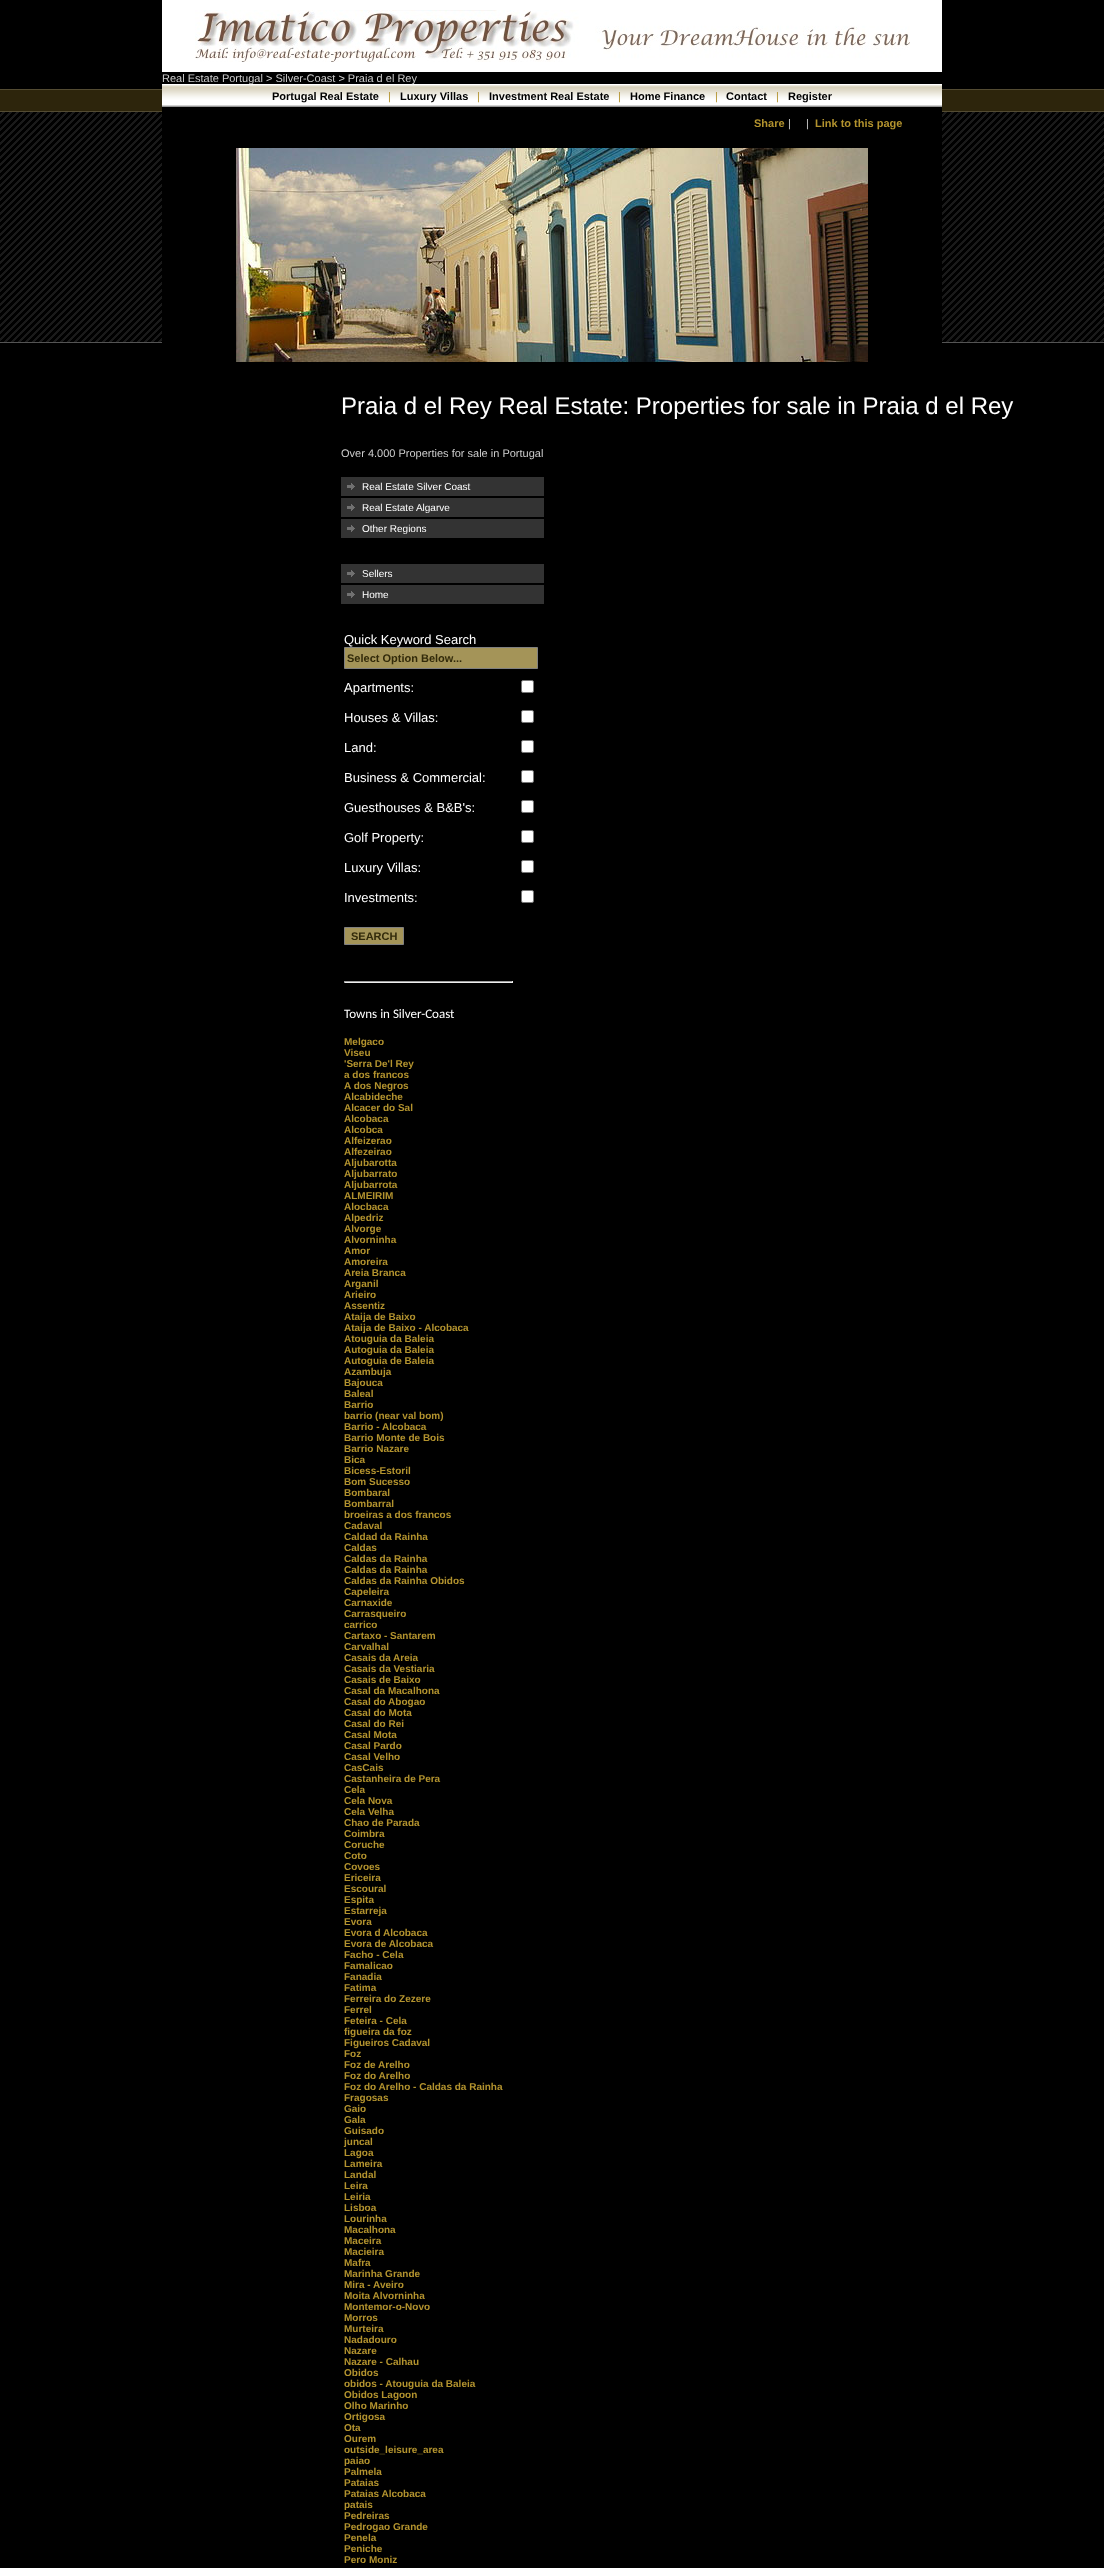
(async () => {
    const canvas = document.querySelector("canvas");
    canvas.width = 1104;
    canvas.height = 2568;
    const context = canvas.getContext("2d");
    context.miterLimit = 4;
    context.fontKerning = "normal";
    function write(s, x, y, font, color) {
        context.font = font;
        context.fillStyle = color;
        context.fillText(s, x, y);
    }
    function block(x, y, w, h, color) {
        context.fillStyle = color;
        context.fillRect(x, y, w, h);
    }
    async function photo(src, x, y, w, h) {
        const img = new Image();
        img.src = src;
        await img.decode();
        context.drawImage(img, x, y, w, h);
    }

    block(0, 0, 1104, 2568, "rgb(0, 0, 0)");
    await photo("media/1.png", 0, 89, 162, 254);
    block(162, 0, 780, 72, "rgb(255, 255, 255)");
    await photo("media/2.png", 195, 10, 715, 52);
    await photo("media/3.png", 162, 84, 780, 23);
    write("Real Estate Portugal > Silver-Coast > Praia d el Rey", 162, 82, "11px Liberation Sans", "rgb(204, 204, 204)");
    write("Portugal Real Estate", 272, 100, "bold 11px Liberation Sans", "rgb(0, 0, 0)");
    write("|", 388, 100, "11px Liberation Sans", "rgb(179, 147, 46)");
    write("Luxury Villas", 400, 100, "bold 11px Liberation Sans", "rgb(0, 0, 0)");
    write("|", 477, 100, "11px Liberation Sans", "rgb(179, 147, 46)");
    write("Investment Real Estate", 489, 100, "bold 11px Liberation Sans", "rgb(0, 0, 0)");
    write("|", 618, 100, "11px Liberation Sans", "rgb(179, 147, 46)");
    write("Home Finance", 630, 100, "bold 11px Liberation Sans", "rgb(0, 0, 0)");
    write("|", 715, 100, "11px Liberation Sans", "rgb(179, 147, 46)");
    write("Contact", 726, 100, "bold 11px Liberation Sans", "rgb(0, 0, 0)");
    write("|", 776, 100, "11px Liberation Sans", "rgb(179, 147, 46)");
    write("Register", 788, 100, "bold 11px Liberation Sans", "rgb(0, 0, 0)");
    write("Share", 754, 127, "bold 11px Liberation Sans", "rgb(179, 147, 46)");
    write("|", 788, 127, "11px Liberation Sans", "rgb(204, 204, 204)");
    write("|", 806, 127, "11px Liberation Sans", "rgb(204, 204, 204)");
    write("Link to this page", 815, 127, "bold 11px Liberation Sans", "rgb(179, 147, 46)");
    await photo("media/4.png", 236, 148, 632, 214);
    await photo("media/1.png", 942, 89, 162, 254);
    write("Praia d el Rey Real Estate: Properties for sale in Praia d el Rey", 341, 414, "24px Liberation Sans", "rgb(255, 255, 255)");
    write("Over 4.000 Properties for sale in Portugal", 341, 457, "11px Liberation Sans", "rgb(204, 204, 204)");
    await photo("media/5.png", 341, 477, 203, 19);
    write("Real Estate Silver Coast", 362, 490, "10px Liberation Sans", "rgb(255, 255, 255)");
    await photo("media/5.png", 341, 498, 203, 19);
    write("Real Estate Algarve", 362, 511, "10px Liberation Sans", "rgb(255, 255, 255)");
    await photo("media/5.png", 341, 519, 203, 19);
    write("Other Regions", 362, 532, "10px Liberation Sans", "rgb(255, 255, 255)");
    await photo("media/5.png", 341, 564, 203, 19);
    write("Sellers", 362, 577, "10px Liberation Sans", "rgb(255, 255, 255)");
    await photo("media/5.png", 341, 585, 203, 19);
    write("Home", 362, 598, "10px Liberation Sans", "rgb(255, 255, 255)");
    write("Quick Keyword Search", 344, 644, "13px Liberation Sans", "rgb(255, 255, 255)");
    context.fillStyle = "rgb(164, 148, 88)";
    context.beginPath();
    context.rect(344.5, 647.5, 193, 21);
    context.fill();
    context.strokeStyle = "rgb(128, 128, 128)";
    context.stroke();
    write("Select Option Below...", 347, 662, "bold 11px Liberation Sans", "rgb(50, 42, 10)");
    write("Apartments:", 344, 692, "13px Liberation Sans", "rgb(255, 255, 255)");
    context.beginPath();
    context.roundRect(521.5, 680.5, 12, 12, 1.5);
    context.fill();
    context.strokeStyle = "rgb(118, 118, 118)";
    context.stroke();
    write("Houses & Villas:", 344, 722, "13px Liberation Sans", "rgb(255, 255, 255)");
    context.beginPath();
    context.roundRect(521.5, 710.5, 12, 12, 1.5);
    context.fill();
    context.stroke();
    write("Land:", 344, 752, "13px Liberation Sans", "rgb(255, 255, 255)");
    context.beginPath();
    context.roundRect(521.5, 740.5, 12, 12, 1.5);
    context.fill();
    context.stroke();
    write("Business & Commercial:", 344, 782, "13px Liberation Sans", "rgb(255, 255, 255)");
    context.beginPath();
    context.roundRect(521.5, 770.5, 12, 12, 1.5);
    context.fill();
    context.stroke();
    write("Guesthouses & B&B's:", 344, 812, "13px Liberation Sans", "rgb(255, 255, 255)");
    context.beginPath();
    context.roundRect(521.5, 800.5, 12, 12, 1.5);
    context.fill();
    context.stroke();
    write("Golf Property:", 344, 842, "13px Liberation Sans", "rgb(255, 255, 255)");
    context.beginPath();
    context.roundRect(521.5, 830.5, 12, 12, 1.5);
    context.fill();
    context.stroke();
    write("Luxury Villas:", 344, 872, "13px Liberation Sans", "rgb(255, 255, 255)");
    context.beginPath();
    context.roundRect(521.5, 860.5, 12, 12, 1.5);
    context.fill();
    context.stroke();
    write("Investments:", 344, 902, "13px Liberation Sans", "rgb(255, 255, 255)");
    context.beginPath();
    context.roundRect(521.5, 890.5, 12, 12, 1.5);
    context.fill();
    context.stroke();
    context.fillStyle = "rgb(164, 148, 88)";
    context.beginPath();
    context.rect(344.5, 927.5, 59, 17);
    context.fill();
    context.strokeStyle = "rgb(128, 128, 128)";
    context.stroke();
    write("SEARCH", 351, 940, "bold 11px Liberation Sans", "rgb(50, 42, 10)");
    block(344, 981, 169, 1, "rgb(159, 159, 159)");
    block(512, 981, 1, 2, "rgb(238, 238, 238)");
    block(344, 982, 169, 1, "rgb(238, 238, 238)");
    block(344, 981, 1, 2, "rgb(159, 159, 159)");
    write("Towns in Silver-Coast", 344, 1018, "13px Carlito", "rgb(255, 255, 255)");
    write("Melgaco", 344, 1045, "bold 10px Liberation Sans", "rgb(179, 147, 46)");
    write("Viseu", 344, 1056, "bold 10px Liberation Sans", "rgb(179, 147, 46)");
    write("'Serra De'l Rey", 344, 1067, "bold 10px Liberation Sans", "rgb(179, 147, 46)");
    write("a dos francos", 344, 1078, "bold 10px Liberation Sans", "rgb(179, 147, 46)");
    write("A dos Negros", 344, 1089, "bold 10px Liberation Sans", "rgb(179, 147, 46)");
    write("Alcabideche", 344, 1100, "bold 10px Liberation Sans", "rgb(179, 147, 46)");
    write("Alcacer do Sal", 344, 1111, "bold 10px Liberation Sans", "rgb(179, 147, 46)");
    write("Alcobaca", 344, 1122, "bold 10px Liberation Sans", "rgb(179, 147, 46)");
    write("Alcobca", 344, 1133, "bold 10px Liberation Sans", "rgb(179, 147, 46)");
    write("Alfeizerao", 344, 1144, "bold 10px Liberation Sans", "rgb(179, 147, 46)");
    write("Alfezeirao", 344, 1155, "bold 10px Liberation Sans", "rgb(179, 147, 46)");
    write("Aljubarotta", 344, 1166, "bold 10px Liberation Sans", "rgb(179, 147, 46)");
    write("Aljubarrato", 344, 1177, "bold 10px Liberation Sans", "rgb(179, 147, 46)");
    write("Aljubarrota", 344, 1188, "bold 10px Liberation Sans", "rgb(179, 147, 46)");
    write("ALMEIRIM", 344, 1199, "bold 10px Liberation Sans", "rgb(179, 147, 46)");
    write("Alocbaca", 344, 1210, "bold 10px Liberation Sans", "rgb(179, 147, 46)");
    write("Alpedriz", 344, 1221, "bold 10px Liberation Sans", "rgb(179, 147, 46)");
    write("Alvorge", 344, 1232, "bold 10px Liberation Sans", "rgb(179, 147, 46)");
    write("Alvorninha", 344, 1243, "bold 10px Liberation Sans", "rgb(179, 147, 46)");
    write("Amor", 344, 1254, "bold 10px Liberation Sans", "rgb(179, 147, 46)");
    write("Amoreira", 344, 1265, "bold 10px Liberation Sans", "rgb(179, 147, 46)");
    write("Areia Branca", 344, 1276, "bold 10px Liberation Sans", "rgb(179, 147, 46)");
    write("Arganil", 344, 1287, "bold 10px Liberation Sans", "rgb(179, 147, 46)");
    write("Arieiro", 344, 1298, "bold 10px Liberation Sans", "rgb(179, 147, 46)");
    write("Assentiz", 344, 1309, "bold 10px Liberation Sans", "rgb(179, 147, 46)");
    write("Ataija de Baixo", 344, 1320, "bold 10px Liberation Sans", "rgb(179, 147, 46)");
    write("Ataija de Baixo - Alcobaca", 344, 1331, "bold 10px Liberation Sans", "rgb(179, 147, 46)");
    write("Atouguia da Baleia", 344, 1342, "bold 10px Liberation Sans", "rgb(179, 147, 46)");
    write("Autoguia da Baleia", 344, 1353, "bold 10px Liberation Sans", "rgb(179, 147, 46)");
    write("Autoguia de Baleia", 344, 1364, "bold 10px Liberation Sans", "rgb(179, 147, 46)");
    write("Azambuja", 344, 1375, "bold 10px Liberation Sans", "rgb(179, 147, 46)");
    write("Bajouca", 344, 1386, "bold 10px Liberation Sans", "rgb(179, 147, 46)");
    write("Baleal", 344, 1397, "bold 10px Liberation Sans", "rgb(179, 147, 46)");
    write("Barrio", 344, 1408, "bold 10px Liberation Sans", "rgb(179, 147, 46)");
    write("barrio (near val bom)", 344, 1419, "bold 10px Liberation Sans", "rgb(179, 147, 46)");
    write("Barrio - Alcobaca", 344, 1430, "bold 10px Liberation Sans", "rgb(179, 147, 46)");
    write("Barrio Monte de Bois", 344, 1441, "bold 10px Liberation Sans", "rgb(179, 147, 46)");
    write("Barrio Nazare", 344, 1452, "bold 10px Liberation Sans", "rgb(179, 147, 46)");
    write("Bica", 344, 1463, "bold 10px Liberation Sans", "rgb(179, 147, 46)");
    write("Bicess-Estoril", 344, 1474, "bold 10px Liberation Sans", "rgb(179, 147, 46)");
    write("Bom Sucesso", 344, 1485, "bold 10px Liberation Sans", "rgb(179, 147, 46)");
    write("Bombaral", 344, 1496, "bold 10px Liberation Sans", "rgb(179, 147, 46)");
    write("Bombarral", 344, 1507, "bold 10px Liberation Sans", "rgb(179, 147, 46)");
    write("broeiras a dos francos", 344, 1518, "bold 10px Liberation Sans", "rgb(179, 147, 46)");
    write("Cadaval", 344, 1529, "bold 10px Liberation Sans", "rgb(179, 147, 46)");
    write("Caldad da Rainha", 344, 1540, "bold 10px Liberation Sans", "rgb(179, 147, 46)");
    write("Caldas", 344, 1551, "bold 10px Liberation Sans", "rgb(179, 147, 46)");
    write("Caldas da Rainha", 344, 1562, "bold 10px Liberation Sans", "rgb(179, 147, 46)");
    write("Caldas da Rainha", 344, 1573, "bold 10px Liberation Sans", "rgb(179, 147, 46)");
    write("Caldas da Rainha Obidos", 344, 1584, "bold 10px Liberation Sans", "rgb(179, 147, 46)");
    write("Capeleira", 344, 1595, "bold 10px Liberation Sans", "rgb(179, 147, 46)");
    write("Carnaxide", 344, 1606, "bold 10px Liberation Sans", "rgb(179, 147, 46)");
    write("Carrasqueiro", 344, 1617, "bold 10px Liberation Sans", "rgb(179, 147, 46)");
    write("carrico", 344, 1628, "bold 10px Liberation Sans", "rgb(179, 147, 46)");
    write("Cartaxo - Santarem", 344, 1639, "bold 10px Liberation Sans", "rgb(179, 147, 46)");
    write("Carvalhal", 344, 1650, "bold 10px Liberation Sans", "rgb(179, 147, 46)");
    write("Casais da Areia", 344, 1661, "bold 10px Liberation Sans", "rgb(179, 147, 46)");
    write("Casais da Vestiaria", 344, 1672, "bold 10px Liberation Sans", "rgb(179, 147, 46)");
    write("Casais de Baixo", 344, 1683, "bold 10px Liberation Sans", "rgb(179, 147, 46)");
    write("Casal da Macalhona", 344, 1694, "bold 10px Liberation Sans", "rgb(179, 147, 46)");
    write("Casal do Abogao", 344, 1705, "bold 10px Liberation Sans", "rgb(179, 147, 46)");
    write("Casal do Mota", 344, 1716, "bold 10px Liberation Sans", "rgb(179, 147, 46)");
    write("Casal do Rei", 344, 1727, "bold 10px Liberation Sans", "rgb(179, 147, 46)");
    write("Casal Mota", 344, 1738, "bold 10px Liberation Sans", "rgb(179, 147, 46)");
    write("Casal Pardo", 344, 1749, "bold 10px Liberation Sans", "rgb(179, 147, 46)");
    write("Casal Velho", 344, 1760, "bold 10px Liberation Sans", "rgb(179, 147, 46)");
    write("CasCais", 344, 1771, "bold 10px Liberation Sans", "rgb(179, 147, 46)");
    write("Castanheira de Pera", 344, 1782, "bold 10px Liberation Sans", "rgb(179, 147, 46)");
    write("Cela", 344, 1793, "bold 10px Liberation Sans", "rgb(179, 147, 46)");
    write("Cela Nova", 344, 1804, "bold 10px Liberation Sans", "rgb(179, 147, 46)");
    write("Cela Velha", 344, 1815, "bold 10px Liberation Sans", "rgb(179, 147, 46)");
    write("Chao de Parada", 344, 1826, "bold 10px Liberation Sans", "rgb(179, 147, 46)");
    write("Coimbra", 344, 1837, "bold 10px Liberation Sans", "rgb(179, 147, 46)");
    write("Coruche", 344, 1848, "bold 10px Liberation Sans", "rgb(179, 147, 46)");
    write("Coto", 344, 1859, "bold 10px Liberation Sans", "rgb(179, 147, 46)");
    write("Covoes", 344, 1870, "bold 10px Liberation Sans", "rgb(179, 147, 46)");
    write("Ericeira", 344, 1881, "bold 10px Liberation Sans", "rgb(179, 147, 46)");
    write("Escoural", 344, 1892, "bold 10px Liberation Sans", "rgb(179, 147, 46)");
    write("Espita", 344, 1903, "bold 10px Liberation Sans", "rgb(179, 147, 46)");
    write("Estarreja", 344, 1914, "bold 10px Liberation Sans", "rgb(179, 147, 46)");
    write("Evora", 344, 1925, "bold 10px Liberation Sans", "rgb(179, 147, 46)");
    write("Evora d Alcobaca", 344, 1936, "bold 10px Liberation Sans", "rgb(179, 147, 46)");
    write("Evora de Alcobaca", 344, 1947, "bold 10px Liberation Sans", "rgb(179, 147, 46)");
    write("Facho - Cela", 344, 1958, "bold 10px Liberation Sans", "rgb(179, 147, 46)");
    write("Famalicao", 344, 1969, "bold 10px Liberation Sans", "rgb(179, 147, 46)");
    write("Fanadia", 344, 1980, "bold 10px Liberation Sans", "rgb(179, 147, 46)");
    write("Fatima", 344, 1991, "bold 10px Liberation Sans", "rgb(179, 147, 46)");
    write("Ferreira do Zezere", 344, 2002, "bold 10px Liberation Sans", "rgb(179, 147, 46)");
    write("Ferrel", 344, 2013, "bold 10px Liberation Sans", "rgb(179, 147, 46)");
    write("Feteira - Cela", 344, 2024, "bold 10px Liberation Sans", "rgb(179, 147, 46)");
    write("figueira da foz", 344, 2035, "bold 10px Liberation Sans", "rgb(179, 147, 46)");
    write("Figueiros Cadaval", 344, 2046, "bold 10px Liberation Sans", "rgb(179, 147, 46)");
    write("Foz", 344, 2057, "bold 10px Liberation Sans", "rgb(179, 147, 46)");
    write("Foz de Arelho", 344, 2068, "bold 10px Liberation Sans", "rgb(179, 147, 46)");
    write("Foz do Arelho", 344, 2079, "bold 10px Liberation Sans", "rgb(179, 147, 46)");
    write("Foz do Arelho - Caldas da Rainha", 344, 2090, "bold 10px Liberation Sans", "rgb(179, 147, 46)");
    write("Fragosas", 344, 2101, "bold 10px Liberation Sans", "rgb(179, 147, 46)");
    write("Gaio", 344, 2112, "bold 10px Liberation Sans", "rgb(179, 147, 46)");
    write("Gala", 344, 2123, "bold 10px Liberation Sans", "rgb(179, 147, 46)");
    write("Guisado", 344, 2134, "bold 10px Liberation Sans", "rgb(179, 147, 46)");
    write("juncal", 344, 2145, "bold 10px Liberation Sans", "rgb(179, 147, 46)");
    write("Lagoa", 344, 2156, "bold 10px Liberation Sans", "rgb(179, 147, 46)");
    write("Lameira", 344, 2167, "bold 10px Liberation Sans", "rgb(179, 147, 46)");
    write("Landal", 344, 2178, "bold 10px Liberation Sans", "rgb(179, 147, 46)");
    write("Leira", 344, 2189, "bold 10px Liberation Sans", "rgb(179, 147, 46)");
    write("Leiria", 344, 2200, "bold 10px Liberation Sans", "rgb(179, 147, 46)");
    write("Lisboa", 344, 2211, "bold 10px Liberation Sans", "rgb(179, 147, 46)");
    write("Lourinha", 344, 2222, "bold 10px Liberation Sans", "rgb(179, 147, 46)");
    write("Macalhona", 344, 2233, "bold 10px Liberation Sans", "rgb(179, 147, 46)");
    write("Maceira", 344, 2244, "bold 10px Liberation Sans", "rgb(179, 147, 46)");
    write("Macieira", 344, 2255, "bold 10px Liberation Sans", "rgb(179, 147, 46)");
    write("Mafra", 344, 2266, "bold 10px Liberation Sans", "rgb(179, 147, 46)");
    write("Marinha Grande", 344, 2277, "bold 10px Liberation Sans", "rgb(179, 147, 46)");
    write("Mira - Aveiro", 344, 2288, "bold 10px Liberation Sans", "rgb(179, 147, 46)");
    write("Moita Alvorninha", 344, 2299, "bold 10px Liberation Sans", "rgb(179, 147, 46)");
    write("Montemor-o-Novo", 344, 2310, "bold 10px Liberation Sans", "rgb(179, 147, 46)");
    write("Morros", 344, 2321, "bold 10px Liberation Sans", "rgb(179, 147, 46)");
    write("Murteira", 344, 2332, "bold 10px Liberation Sans", "rgb(179, 147, 46)");
    write("Nadadouro", 344, 2343, "bold 10px Liberation Sans", "rgb(179, 147, 46)");
    write("Nazare", 344, 2354, "bold 10px Liberation Sans", "rgb(179, 147, 46)");
    write("Nazare - Calhau", 344, 2365, "bold 10px Liberation Sans", "rgb(179, 147, 46)");
    write("Obidos", 344, 2376, "bold 10px Liberation Sans", "rgb(179, 147, 46)");
    write("obidos - Atouguia da Baleia", 344, 2387, "bold 10px Liberation Sans", "rgb(179, 147, 46)");
    write("Obidos Lagoon", 344, 2398, "bold 10px Liberation Sans", "rgb(179, 147, 46)");
    write("Olho Marinho", 344, 2409, "bold 10px Liberation Sans", "rgb(179, 147, 46)");
    write("Ortigosa", 344, 2420, "bold 10px Liberation Sans", "rgb(179, 147, 46)");
    write("Ota", 344, 2431, "bold 10px Liberation Sans", "rgb(179, 147, 46)");
    write("Ourem", 344, 2442, "bold 10px Liberation Sans", "rgb(179, 147, 46)");
    write("outside_leisure_area", 344, 2453, "bold 10px Liberation Sans", "rgb(179, 147, 46)");
    write("paiao", 344, 2464, "bold 10px Liberation Sans", "rgb(179, 147, 46)");
    write("Palmela", 344, 2475, "bold 10px Liberation Sans", "rgb(179, 147, 46)");
    write("Pataias", 344, 2486, "bold 10px Liberation Sans", "rgb(179, 147, 46)");
    write("Pataias Alcobaca", 344, 2497, "bold 10px Liberation Sans", "rgb(179, 147, 46)");
    write("patais", 344, 2508, "bold 10px Liberation Sans", "rgb(179, 147, 46)");
    write("Pedreiras", 344, 2519, "bold 10px Liberation Sans", "rgb(179, 147, 46)");
    write("Pedrogao Grande", 344, 2530, "bold 10px Liberation Sans", "rgb(179, 147, 46)");
    write("Penela", 344, 2541, "bold 10px Liberation Sans", "rgb(179, 147, 46)");
    write("Peniche", 344, 2552, "bold 10px Liberation Sans", "rgb(179, 147, 46)");
    write("Pero Moniz", 344, 2563, "bold 10px Liberation Sans", "rgb(179, 147, 46)");
})();
